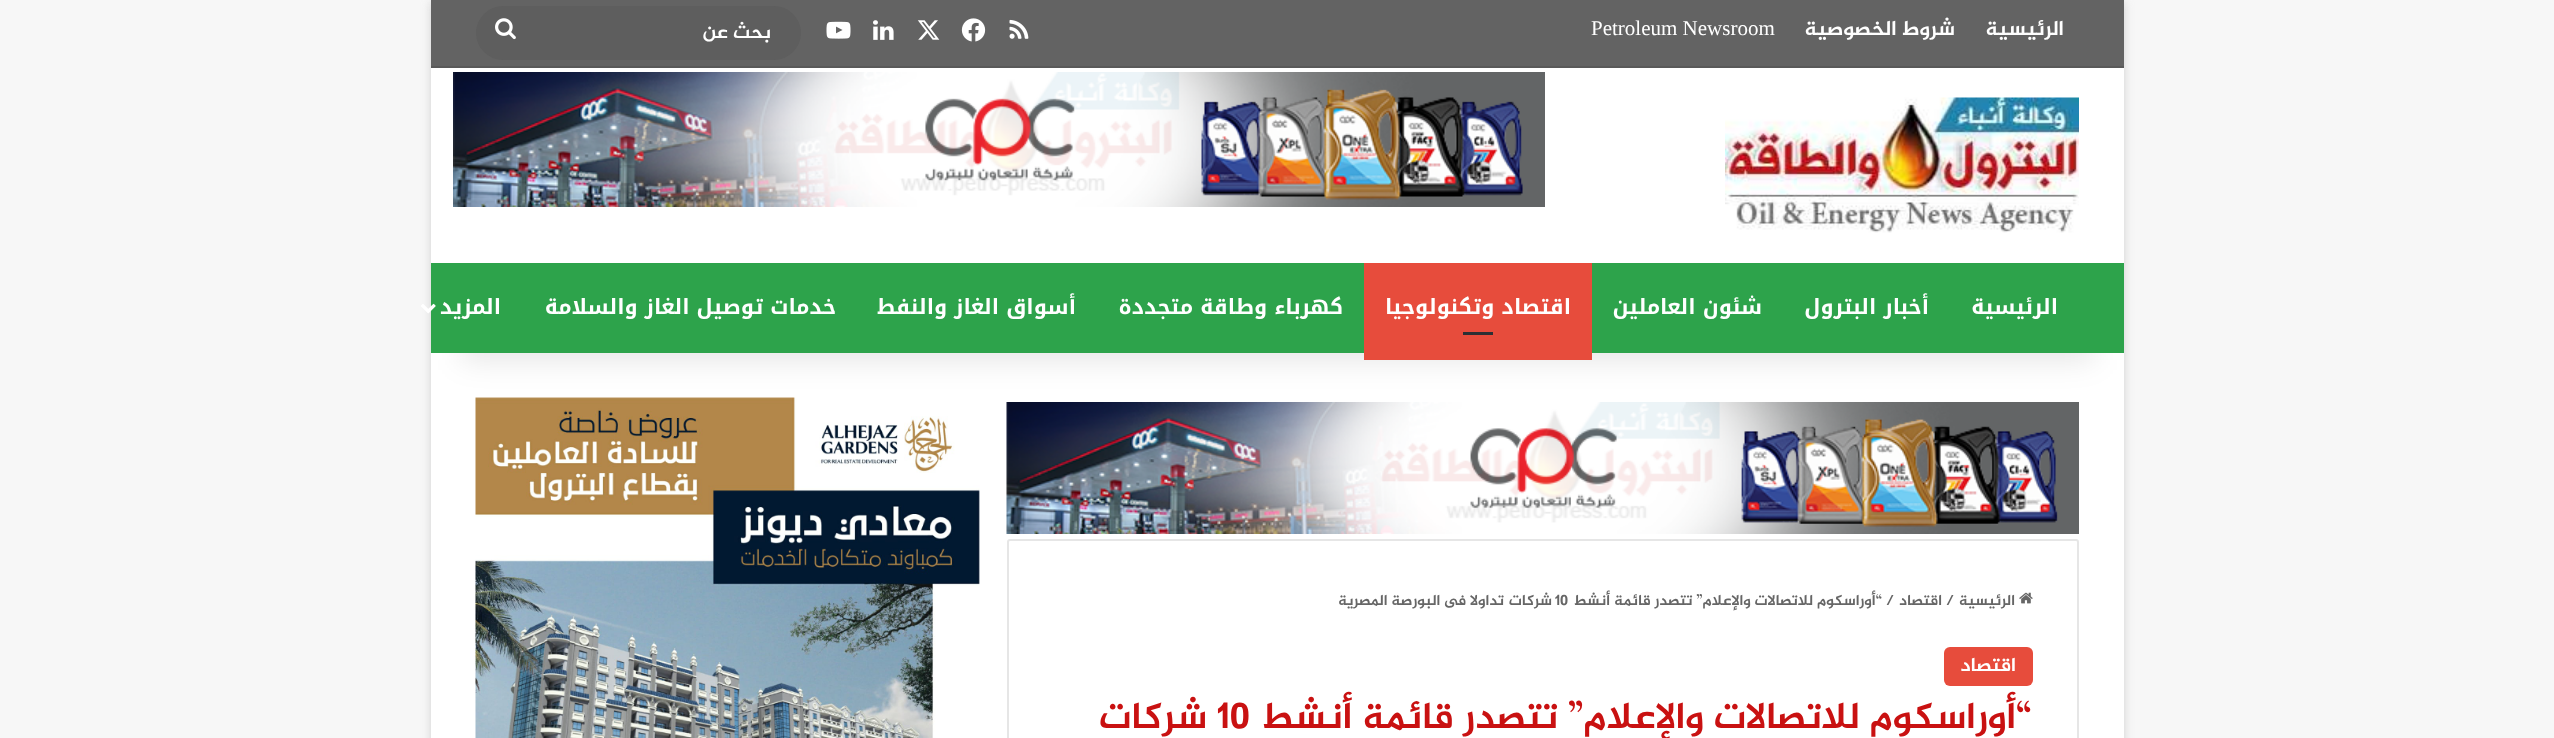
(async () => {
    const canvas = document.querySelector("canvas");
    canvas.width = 2554;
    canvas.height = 738;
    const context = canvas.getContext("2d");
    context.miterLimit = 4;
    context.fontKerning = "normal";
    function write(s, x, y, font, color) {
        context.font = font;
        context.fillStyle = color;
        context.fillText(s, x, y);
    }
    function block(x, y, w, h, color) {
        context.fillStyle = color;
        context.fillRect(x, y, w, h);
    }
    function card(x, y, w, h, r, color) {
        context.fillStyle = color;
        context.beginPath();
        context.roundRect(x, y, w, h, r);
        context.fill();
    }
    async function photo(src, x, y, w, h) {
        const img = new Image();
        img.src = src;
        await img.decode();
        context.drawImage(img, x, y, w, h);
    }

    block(0, 0, 2554, 738, "rgb(247, 247, 247)");
    context.fillStyle = "rgba(171, 171, 171, 0.5)";
    context.filter = "blur(5px)";
    context.beginPath();
    context.rect(431, 2, 1693, 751);
    context.fill();
    context.filter = "none";
    block(431, 353, 1693, 385, "rgb(255, 255, 255)");
    await photo("media/10.png", 1006, 402, 1073, 132);
    await photo("media/12.png", 475, 397, 505, 341);
    context.fillStyle = "rgba(0, 0, 0, 0.1)";
    context.filter = "blur(15px)";
    context.beginPath();
    context.rect(461, 68, 1633, 292);
    context.fill();
    context.filter = "none";
    block(431, 68, 1693, 195, "rgb(255, 255, 255)");
    block(431, 0, 1693, 66, "rgb(99, 99, 99)");
    block(431, 66, 1693, 2, "rgb(89, 89, 89)");
    context.direction = "rtl";
    write("الرئيسية", 2064, 35, "bold 21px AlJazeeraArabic", "rgb(255, 255, 255)");
    write("شروط الخصوصية", 1955, 35, "bold 21px AlJazeeraArabic", "rgb(255, 255, 255)");
    context.direction = "ltr";
    write("Petroleum Newsroom", 1591, 35, "21px Liberation Serif", "rgb(255, 255, 255)");
    await photo("media/1.png", 1009, 19, 20, 20);
    await photo("media/2.png", 961, 18, 25, 24);
    await photo("media/3.png", 917, 20, 23, 20);
    await photo("media/4.png", 873, 20, 21, 20);
    await photo("media/5.png", 826, 21, 25, 18);
    card(476, 6, 325, 54, 27, "rgb(94, 94, 94)");
    context.direction = "rtl";
    write("بحث عن", 771, 38, "bold 19.5px AlJazeeraArabic", "rgb(255, 255, 255)");
    await photo("media/6.png", 495, 18, 21, 22);
    await photo("media/7.png", 1725, 97, 354, 136);
    await photo("media/8.png", 453, 72, 1092, 135);
    block(431, 263, 1693, 90, "rgb(45, 163, 75)");
    write("الرئيسية", 2058, 314, "bold 21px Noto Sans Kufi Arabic", "rgb(255, 255, 255)");
    write("أخبار البترول", 1929, 314, "bold 21px Noto Sans Kufi Arabic", "rgb(255, 255, 255)");
    write("شئون العاملين", 1762, 314, "bold 21px Noto Sans Kufi Arabic", "rgb(255, 255, 255)");
    block(1364, 263, 228, 97, "rgb(231, 76, 60)");
    write("اقتصاد وتكنولوجيا", 1571, 314, "bold 21px Noto Sans Kufi Arabic", "rgb(255, 255, 255)");
    block(1463, 332, 30, 3, "rgb(44, 47, 52)");
    write("كهرباء وطاقة متجددة", 1343, 314, "bold 21px Noto Sans Kufi Arabic", "rgb(255, 255, 255)");
    write("أسواق الغاز والنفط", 1076, 314, "bold 21px Noto Sans Kufi Arabic", "rgb(255, 255, 255)");
    write("خدمات توصيل الغاز والسلامة", 836, 314, "bold 21px Noto Sans Kufi Arabic", "rgb(255, 255, 255)");
    write("المزيد", 501, 314, "bold 21px Noto Sans Kufi Arabic", "rgb(255, 255, 255)");
    await photo("media/9.png", 421, 303, 15, 11);
    context.beginPath();
    context.roundRect(1008, 540, 1070, 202, 2);
    context.strokeStyle = "rgb(230, 230, 230)";
    context.lineWidth = 2;
    context.stroke();
    await photo("media/11.png", 2019, 592, 14, 12);
    write("الرئيسية", 2015, 605, "bold 15px AlJazeeraArabic", "rgb(102, 102, 102)");
    context.direction = "ltr";
    write("/", 1946, 605, "bold 15px AlJazeeraArabic", "rgb(102, 102, 102)");
    context.direction = "rtl";
    write("اقتصاد", 1942, 605, "bold 15px AlJazeeraArabic", "rgb(102, 102, 102)");
    context.direction = "ltr";
    write("/", 1886, 605, "bold 15px AlJazeeraArabic", "rgb(102, 102, 102)");
    context.direction = "rtl";
    write("“أوراسكوم للاتصالات والإعلام” تتصدر قائمة أنشط", 1882, 605, "bold 15px AlJazeeraArabic", "rgb(102, 102, 102)");
    context.direction = "ltr";
    write("10", 1555, 605, "bold 15px AlJazeeraArabic", "rgb(102, 102, 102)");
    context.direction = "rtl";
    write("شركات", 1552, 605, "bold 15px AlJazeeraArabic", "rgb(102, 102, 102)");
    write("تداولا فى البورصة المصرية", 1504, 605, "bold 15px AlJazeeraArabic", "rgb(102, 102, 102)");
    card(1944, 647, 89, 39, 6, "rgb(231, 76, 60)");
    write("اقتصاد", 2016, 671, "bold 19.5px AlJazeeraArabic", "rgb(255, 255, 255)");
    write("“أوراسكوم للاتصالات والإعلام” تتصدر قائمة أنشط", 2032, 728, "bold 37.5px AlJazeeraArabic", "rgb(201, 17, 17)");
    context.direction = "ltr";
    write("10", 1217, 728, "bold 37.5px AlJazeeraArabic", "rgb(201, 17, 17)");
    context.direction = "rtl";
    write("شركات", 1207, 728, "bold 37.5px AlJazeeraArabic", "rgb(201, 17, 17)");
})();
